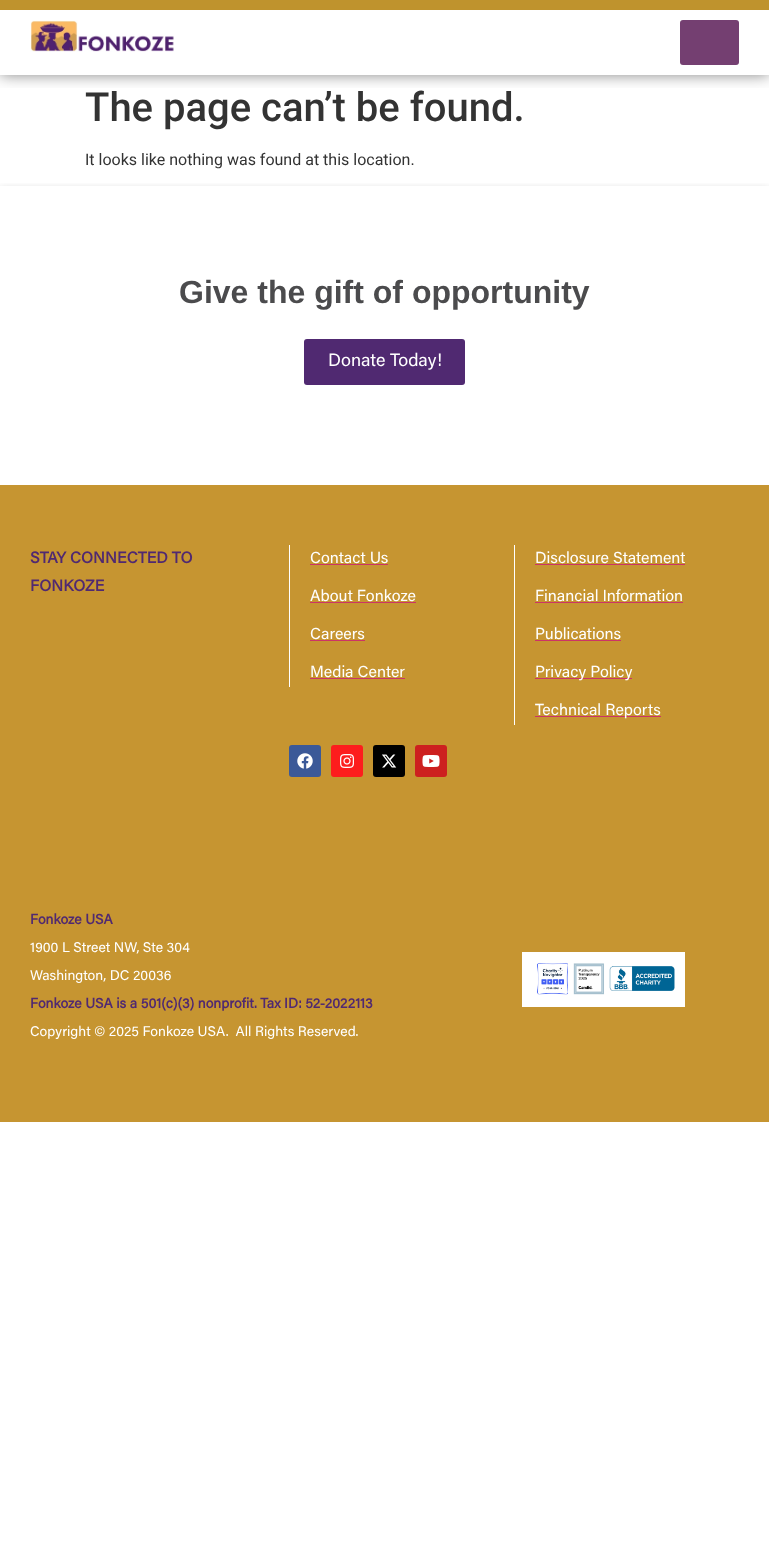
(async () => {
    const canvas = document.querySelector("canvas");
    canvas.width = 769;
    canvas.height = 1557;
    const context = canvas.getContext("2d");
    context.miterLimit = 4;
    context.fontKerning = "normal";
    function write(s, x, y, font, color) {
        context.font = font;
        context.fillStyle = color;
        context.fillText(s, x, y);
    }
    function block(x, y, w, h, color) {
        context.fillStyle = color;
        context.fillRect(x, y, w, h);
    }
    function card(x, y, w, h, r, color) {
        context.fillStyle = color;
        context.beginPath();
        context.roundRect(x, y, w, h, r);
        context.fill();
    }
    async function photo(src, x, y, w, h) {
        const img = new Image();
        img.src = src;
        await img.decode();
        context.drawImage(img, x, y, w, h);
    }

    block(0, 0, 769, 1557, "rgb(255, 255, 255)");
    context.save();
    context.beginPath();
    context.rect(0, 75, 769, 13);
    context.clip();
    context.fillStyle = "rgba(0, 0, 0, 0.47)";
    context.filter = "blur(7.5px)";
    context.beginPath();
    context.rect(0, 0, 769, 75);
    context.fill();
    context.filter = "none";
    context.restore();
    block(0, 0, 769, 10, "rgb(191, 147, 45)");
    await photo("media/1.png", 30, 20, 144, 32);
    card(680, 20, 59, 45, 3, "rgb(116, 63, 113)");
    write("The page can’t be found.", 85, 121, "500 40px Roboto", "rgb(51, 51, 51)");
    write("It looks like nothing was found at this location.", 85, 165, "16px Roboto", "rgb(51, 51, 51)");
    context.save();
    context.beginPath();
    context.rect(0, 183, 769, 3);
    context.clip();
    context.fillStyle = "rgba(0, 0, 0, 0.35)";
    context.filter = "blur(5px)";
    context.beginPath();
    context.rect(0, 191, 769, 299);
    context.fill();
    context.filter = "none";
    context.restore();
    write("Give the gift of opportunity", 179, 303, "bold 32px Liberation Sans", "rgb(75, 75, 77)");
    card(304, 339, 161, 46, 3, "rgb(80, 41, 113)");
    write("Donate Today!", 328, 366, "18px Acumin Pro", "rgb(255, 255, 255)");
    block(0, 485, 769, 637, "rgb(198, 149, 49)");
    write("STAY CONNECTED TO", 30, 563, "bold 16px Acumin Pro", "rgb(80, 41, 113)");
    write("FONKOZE", 30, 591, "bold 16px Acumin Pro", "rgb(80, 41, 113)");
    block(289, 545, 1, 142, "rgb(255, 255, 255)");
    write("Contact Us", 310, 563, "16px Acumin Pro", "rgb(255, 255, 255)");
    block(310, 564, 78, 1, "rgb(204, 51, 102)");
    write("About Fonkoze", 310, 601, "16px Acumin Pro", "rgb(255, 255, 255)");
    block(310, 602, 106, 1, "rgb(204, 51, 102)");
    write("Careers", 310, 639, "16px Acumin Pro", "rgb(255, 255, 255)");
    block(310, 640, 55, 1, "rgb(204, 51, 102)");
    write("Media Center", 310, 677, "16px Acumin Pro", "rgb(255, 255, 255)");
    block(310, 678, 95, 1, "rgb(204, 51, 102)");
    block(514, 545, 1, 180, "rgb(255, 255, 255)");
    write("Disclosure Statement", 535, 563, "16px Acumin Pro", "rgb(255, 255, 255)");
    block(535, 564, 150, 1, "rgb(204, 51, 102)");
    write("Financial Information", 535, 601, "16px Acumin Pro", "rgb(255, 255, 255)");
    block(535, 602, 148, 1, "rgb(204, 51, 102)");
    write("Publications", 535, 639, "16px Acumin Pro", "rgb(255, 255, 255)");
    block(535, 640, 86, 1, "rgb(204, 51, 102)");
    block(535, 678, 97, 1, "rgb(204, 51, 102)");
    write("Privacy Policy", 535, 677, "16px Acumin Pro", "rgb(255, 255, 255)");
    block(535, 716, 126, 1, "rgb(204, 51, 102)");
    write("Technical Reports", 535, 715, "16px Acumin Pro", "rgb(255, 255, 255)");
    card(289, 745, 32, 32, 3, "rgb(59, 89, 152)");
    await photo("media/2.png", 297, 753, 16, 16);
    card(331, 745, 32, 32, 3, "rgb(253, 29, 29)");
    await photo("media/3.png", 340, 754, 14, 14);
    card(373, 745, 32, 32, 3, "rgb(0, 0, 0)");
    await photo("media/4.png", 382, 754, 15, 14);
    card(415, 745, 32, 32, 3, "rgb(205, 32, 31)");
    await photo("media/5.png", 422, 755, 18, 12);
    write("Fonkoze USA", 30, 924, "bold 14px Acumin Pro", "rgb(80, 41, 113)");
    write("1900 L Street NW, Ste 304", 30, 952, "14px Acumin Pro", "rgb(255, 255, 255)");
    write("Washington, DC 20036", 30, 980, "14px Acumin Pro", "rgb(255, 255, 255)");
    write("Fonkoze USA is a 501(c)(3) nonprofit. Tax ID: 52-2022113", 30, 1008, "bold 14px Acumin Pro", "rgb(80, 41, 113)");
    write("Copyright © 2025 Fonkoze USA.  All Rights Reserved.", 30, 1036, "14px Acumin Pro", "rgb(255, 255, 255)");
    await photo("media/6.png", 522, 952, 163, 55);
})();
